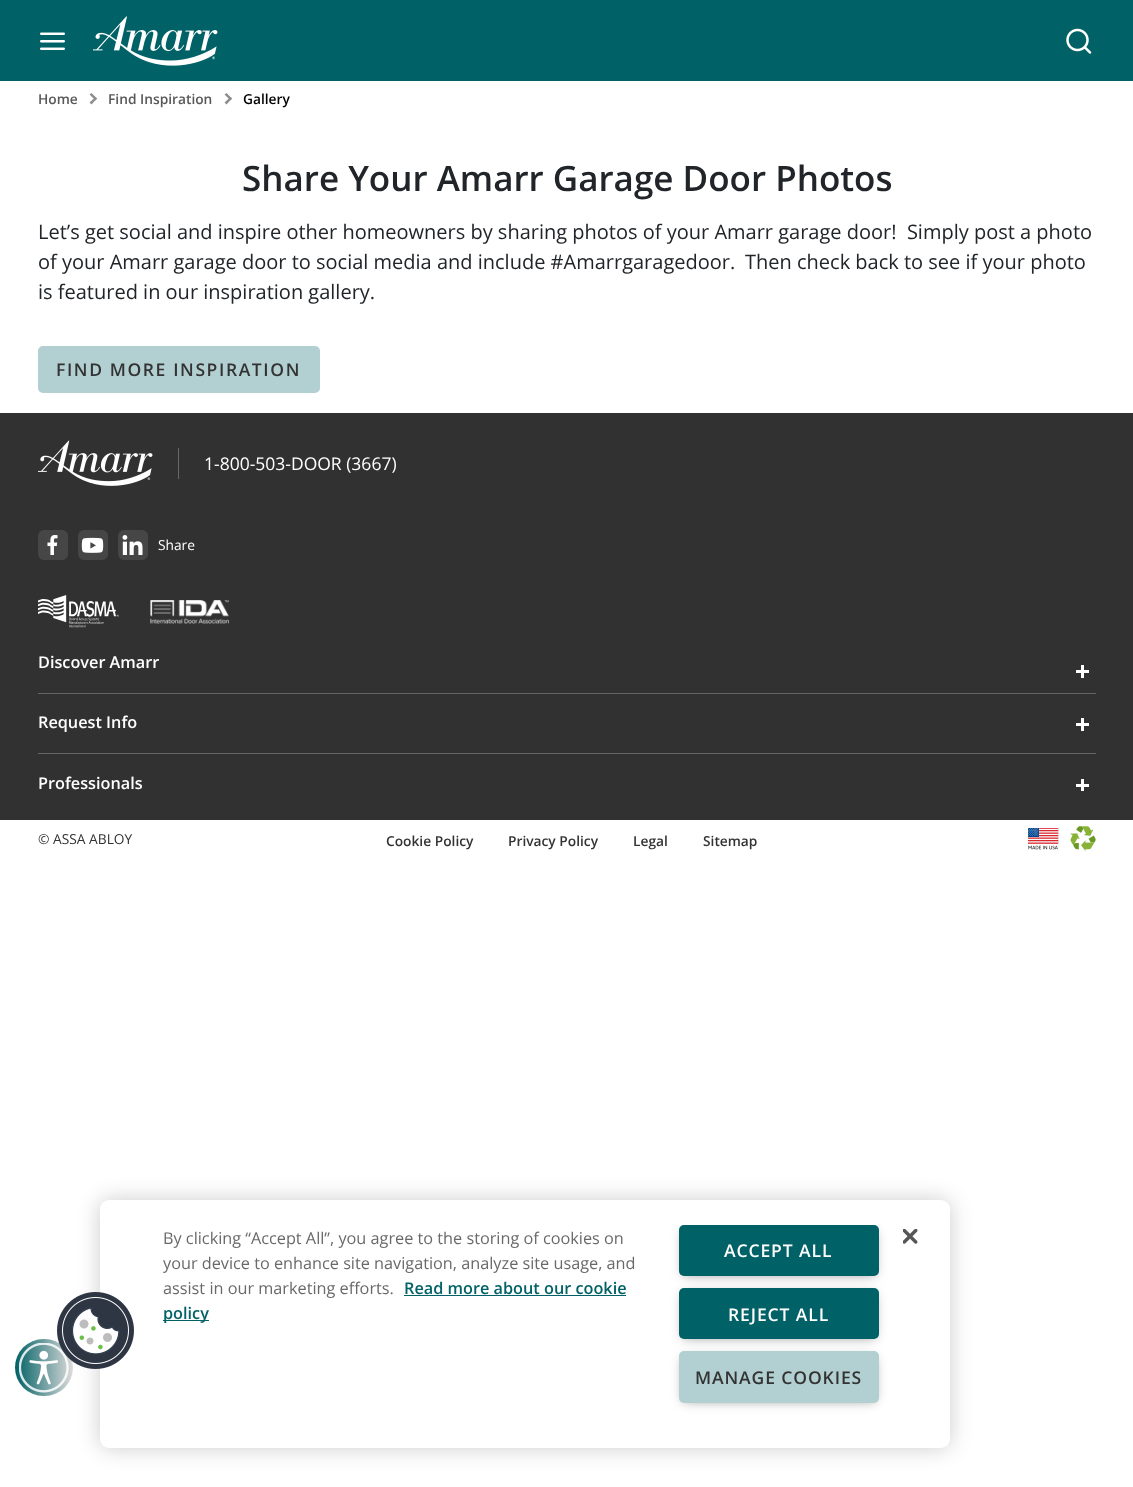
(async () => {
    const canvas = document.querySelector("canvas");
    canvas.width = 1133;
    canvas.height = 1487;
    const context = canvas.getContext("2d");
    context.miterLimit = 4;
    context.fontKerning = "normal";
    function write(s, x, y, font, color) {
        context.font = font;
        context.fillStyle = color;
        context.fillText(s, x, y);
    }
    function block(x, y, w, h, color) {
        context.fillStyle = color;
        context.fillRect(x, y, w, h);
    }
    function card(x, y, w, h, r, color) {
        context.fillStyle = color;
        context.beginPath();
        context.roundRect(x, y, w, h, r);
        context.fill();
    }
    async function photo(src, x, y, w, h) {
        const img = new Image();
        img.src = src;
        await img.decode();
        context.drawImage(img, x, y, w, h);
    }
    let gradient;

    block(0, 0, 1133, 1487, "rgb(255, 255, 255)");
    block(0, 0, 1133, 81, "rgb(0, 97, 102)");
    await photo("media/1.png", 40, 32, 25, 18);
    await photo("media/2.png", 93, 16, 125, 50);
    await photo("media/3.png", 1066, 28, 26, 26);
    write("Home", 38, 104, "600 13.75px Open Sans", "rgb(88, 88, 88)");
    context.fillStyle = "rgb(141, 141, 141)";
    context.beginPath();
    context.moveTo(91.5, 93);
    context.lineTo(97, 98.5);
    context.lineTo(95.5, 100.5);
    context.lineTo(89.5, 94.5);
    context.closePath();
    context.fill();
    context.beginPath();
    context.moveTo(95.5, 97);
    context.lineTo(97, 98.5);
    context.lineTo(91.5, 104.5);
    context.lineTo(89.5, 102.5);
    context.closePath();
    context.fill();
    write("Find Inspiration", 108, 104, "600 13.75px Open Sans", "rgb(88, 88, 88)");
    context.fillStyle = "rgb(141, 141, 141)";
    context.beginPath();
    context.moveTo(226.5, 93);
    context.lineTo(232, 98.5);
    context.lineTo(230.5, 100.5);
    context.lineTo(224.5, 94.5);
    context.closePath();
    context.fill();
    context.beginPath();
    context.moveTo(230.5, 97);
    context.lineTo(232, 98.5);
    context.lineTo(226.5, 104.5);
    context.lineTo(224.5, 102.5);
    context.closePath();
    context.fill();
    write("Gallery", 243, 104, "600 13.75px Open Sans", "rgb(0, 0, 0)");
    write("Share Your Amarr Garage Door Photos", 242, 191, "600 35px Open Sans", "rgb(33, 37, 41)");
    write("Let’s get social and inspire other homeowners by sharing photos of your Amarr garage door!  Simply post a photo", 38, 239, "20px Open Sans", "rgb(33, 37, 41)");
    write("of your Amarr garage door to social media and include #Amarrgaragedoor.", 38, 269, "20px Open Sans", "rgb(33, 37, 41)");
    write("Then check back to see if your photo", 745, 269, "20px Open Sans", "rgb(33, 37, 41)");
    write("is featured in our inspiration gallery.", 38, 299, "20px Open Sans", "rgb(33, 37, 41)");
    card(38, 346, 282, 47, 5, "rgb(178, 207, 209)");
    context.letterSpacing = "1.6px";
    write("FIND MORE INSPIRATION", 56, 376, "600 17.5px Open Sans", "rgb(51, 51, 51)");
    block(0, 413, 1133, 407, "rgb(49, 49, 49)");
    await photo("media/4.png", 38, 440, 115, 46);
    block(178, 448, 1, 31, "rgb(104, 104, 104)");
    context.letterSpacing = "0px";
    write("1-800-503-DOOR (3667)", 204, 470, "17.5px Open Sans", "rgb(255, 255, 255)");
    await photo("media/5.png", 38, 530, 30, 30);
    await photo("media/6.png", 78, 530, 30, 30);
    await photo("media/7.png", 118, 530, 30, 30);
    write("Share", 158, 550, "13.75px Open Sans", "rgb(255, 255, 255)");
    await photo("media/8.png", 38, 595, 81, 33);
    await photo("media/9.png", 150, 600, 79, 24);
    block(38, 693, 1058, 1, "rgb(101, 101, 101)");
    write("Discover Amarr", 38, 668, "600 16.25px Open Sans", "rgb(255, 255, 255)");
    block(1081, 665, 3, 13, "rgb(255, 255, 255)");
    block(1076, 670, 13, 3, "rgb(255, 255, 255)");
    block(38, 753, 1058, 1, "rgb(101, 101, 101)");
    write("Request Info", 38, 728, "600 16.25px Open Sans", "rgb(255, 255, 255)");
    block(1081, 718, 3, 13, "rgb(255, 255, 255)");
    block(1076, 723, 13, 3, "rgb(255, 255, 255)");
    write("Professionals", 38, 789, "600 16.25px Open Sans", "rgb(255, 255, 255)");
    block(1081, 779, 3, 12, "rgb(255, 255, 255)");
    block(1076, 784, 13, 3, "rgb(255, 255, 255)");
    write("© ASSA ABLOY", 38, 844, "13.75px Open Sans", "rgb(51, 51, 51)");
    write("Cookie Policy", 386, 846, "600 13.75px Open Sans", "rgb(51, 51, 51)");
    write("Privacy Policy", 508, 846, "600 13.75px Open Sans", "rgb(51, 51, 51)");
    write("Legal", 633, 846, "600 13.75px Open Sans", "rgb(51, 51, 51)");
    write("Sitemap", 703, 846, "600 13.75px Open Sans", "rgb(51, 51, 51)");
    await photo("media/10.png", 1028, 828, 31, 22);
    await photo("media/11.png", 1070, 826, 26, 25);
    gradient = context.createLinearGradient(15, 1368, 73, 1368);
    gradient.addColorStop(0, "rgb(0, 97, 102)");
    gradient.addColorStop(0.25, "rgb(56, 128, 131)");
    gradient.addColorStop(0.5, "rgb(112, 158, 161)");
    gradient.addColorStop(0.75, "rgb(167, 189, 190)");
    gradient.addColorStop(1, "rgb(223, 219, 219)");
    context.fillStyle = gradient;
    context.beginPath();
    context.roundRect(15, 1339, 58, 57, 28.5);
    context.fill();
    await photo("media/12.png", 19, 1343, 50, 50);
    context.fillStyle = "rgba(0, 0, 0, 0.2)";
    context.filter = "blur(11px)";
    context.beginPath();
    context.roundRect(100, 1200, 850, 248, 9);
    context.fill();
    context.filter = "none";
    card(100, 1200, 850, 248, 9, "rgb(255, 255, 255)");
    await photo("media/13.png", 57, 1292, 77, 77);
    write("By clicking “Accept All”, you agree to the storing of cookies on", 163, 1244, "16.25px Open Sans", "rgb(105, 105, 105)");
    write("your device to enhance site navigation, analyze site usage, and", 163, 1269, "16.25px Open Sans", "rgb(105, 105, 105)");
    write("assist in our marketing efforts.", 163, 1294, "16.25px Open Sans", "rgb(105, 105, 105)");
    write("Read more about our cookie", 404, 1294, "600 16.25px Open Sans", "rgb(0, 97, 102)");
    block(404, 1295, 222, 1, "rgb(0, 97, 102)");
    block(163, 1320, 46, 1, "rgb(0, 97, 102)");
    write("policy", 163, 1319, "600 16.25px Open Sans", "rgb(0, 97, 102)");
    context.save();
    context.beginPath();
    context.rect(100, 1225, 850, 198);
    context.clip();
    context.fillStyle = "rgb(153, 153, 153)";
    context.filter = "blur(6px)";
    context.beginPath();
    context.roundRect(683, 1231, 192, 44, 1);
    context.fill();
    context.filter = "none";
    context.restore();
    card(679, 1225, 200, 51, 5, "rgb(0, 97, 102)");
    context.letterSpacing = "0.9px";
    write("ACCEPT ALL", 724, 1257, "600 17.5px Open Sans", "rgb(255, 255, 255)");
    context.fillStyle = "rgb(153, 153, 153)";
    context.filter = "blur(6px)";
    context.beginPath();
    context.roundRect(683, 1294, 192, 44, 1);
    context.fill();
    context.filter = "none";
    card(679, 1288, 200, 51, 5, "rgb(0, 97, 102)");
    write("REJECT ALL", 728, 1321, "600 17.5px Open Sans", "rgb(255, 255, 255)");
    context.fillStyle = "rgb(153, 153, 153)";
    context.filter = "blur(6px)";
    context.beginPath();
    context.roundRect(683, 1358, 192, 43, 1);
    context.fill();
    context.filter = "none";
    card(679, 1351, 200, 52, 5, "rgb(178, 207, 209)");
    write("MANAGE COOKIES", 695, 1384, "600 17.5px Open Sans", "rgb(51, 51, 51)");
    await photo("media/14.png", 903, 1229, 15, 15);
})();
